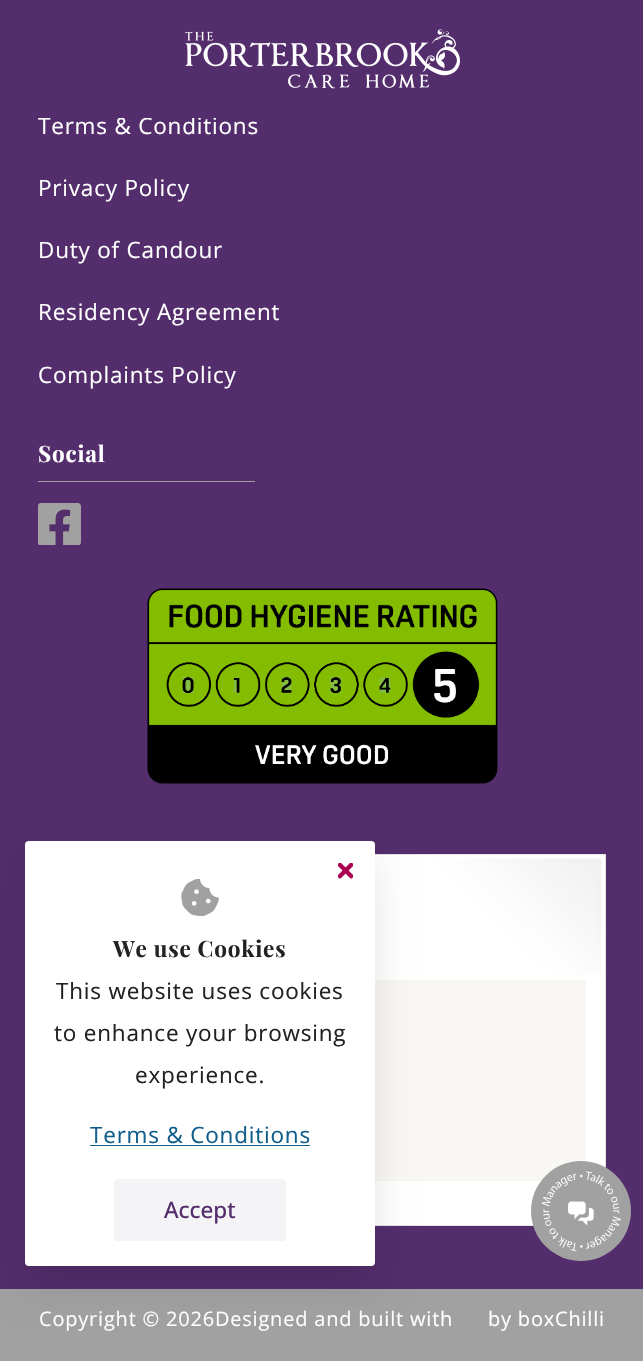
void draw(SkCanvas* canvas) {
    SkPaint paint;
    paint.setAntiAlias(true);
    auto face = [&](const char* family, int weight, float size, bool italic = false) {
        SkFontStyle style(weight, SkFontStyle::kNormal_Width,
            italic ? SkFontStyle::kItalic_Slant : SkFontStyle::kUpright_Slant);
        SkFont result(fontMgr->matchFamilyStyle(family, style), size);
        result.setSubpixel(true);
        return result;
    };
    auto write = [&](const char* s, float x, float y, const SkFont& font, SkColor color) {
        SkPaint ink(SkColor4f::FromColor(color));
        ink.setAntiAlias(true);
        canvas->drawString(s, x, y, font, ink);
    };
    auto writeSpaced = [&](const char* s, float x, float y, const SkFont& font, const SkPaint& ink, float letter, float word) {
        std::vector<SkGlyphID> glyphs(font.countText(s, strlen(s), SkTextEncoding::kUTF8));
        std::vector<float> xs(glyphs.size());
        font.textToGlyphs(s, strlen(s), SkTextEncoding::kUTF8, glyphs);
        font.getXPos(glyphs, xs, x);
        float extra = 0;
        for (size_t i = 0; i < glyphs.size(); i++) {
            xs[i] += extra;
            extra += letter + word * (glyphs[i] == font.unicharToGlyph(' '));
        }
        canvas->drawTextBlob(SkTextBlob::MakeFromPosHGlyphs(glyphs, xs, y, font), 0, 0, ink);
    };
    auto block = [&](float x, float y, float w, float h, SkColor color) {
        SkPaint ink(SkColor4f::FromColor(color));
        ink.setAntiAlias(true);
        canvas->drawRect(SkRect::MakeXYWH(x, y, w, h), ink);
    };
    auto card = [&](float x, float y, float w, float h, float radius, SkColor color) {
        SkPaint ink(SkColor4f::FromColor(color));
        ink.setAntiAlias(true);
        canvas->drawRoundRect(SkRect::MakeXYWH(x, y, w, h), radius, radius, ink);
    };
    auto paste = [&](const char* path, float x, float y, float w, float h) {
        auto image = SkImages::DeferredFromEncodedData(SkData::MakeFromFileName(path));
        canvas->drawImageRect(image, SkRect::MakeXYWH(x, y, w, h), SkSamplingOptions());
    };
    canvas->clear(SkColorSetRGB(83, 45, 108));
    auto kFont1 = face("Open Sans", 400, 22.5f);
    paint.setColor(SK_ColorWHITE);
    writeSpaced("Terms & Conditions", 38, 134, kFont1, paint, 0.8f, 0);
    block(37, 116, 179, 2, SkColorSetRGB(83, 45, 108));
    paste("pic1.png", 185, 29, 275, 60);
    writeSpaced("Privacy Policy", 38, 196, kFont1, paint, 0.8f, 0);
    writeSpaced("Duty of Candour", 38, 258, kFont1, paint, 0.8f, 0);
    writeSpaced("Residency Agreement", 38, 320, kFont1, paint, 0.8f, 0);
    writeSpaced("Complaints Policy", 38, 383, kFont1, paint, 0.8f, 0);
    block(38, 481, 217, 1, SkColorSetRGB(161, 161, 161));
    auto kFont2 = face("Playfair Display", 700, 22.5f);
    writeSpaced("Social", 38, 462, kFont2, paint, 0.8f, 0);
    paste("pic2.png", 38, 503, 43, 42);
    paste("pic3.png", 147, 588, 351, 196);
    block(375, 855, 230, 370, SK_ColorWHITE);
    paint.setStyle(SkPaint::kStroke_Style);
    paint.setStrokeWidth(1);
    paint.setColor(SkColorSetRGB(228, 228, 228));
    canvas->drawRect(SkRect::MakeXYWH(38.5f, 854.5f, 567, 371), paint);
    paste("pic4.png", 430, 854, 175, 121);
    block(375, 980, 211, 201, SkColorSetRGB(248, 247, 243));
    paint.setStyle(SkPaint::kFill_Style);
    paint.setColor(SkColorSetRGB(161, 161, 161));
    canvas->drawCircle(581, 1211, 50, paint);
    paste("pic5.png", 542, 1171, 79, 80);
    block(0, 1289, 643, 72, SkColorSetRGB(161, 161, 161));
    auto kFont3 = face("Open Sans", 400, 20);
    paint.setColor(SK_ColorWHITE);
    writeSpaced("Copyright © 2026Designed and built with", 39, 1326, kFont3, paint, 0.8f, 0);
    writeSpaced("by boxChilli", 488, 1326, kFont3, paint, 0.8f, 0);
    paint.setColor(SkColorSetARGB(26, 0, 0, 0));
    paint.setMaskFilter(SkMaskFilter::MakeBlur(kNormal_SkBlurStyle, 19));
    canvas->drawRoundRect(SkRect::MakeXYWH(25, 860, 350, 425), 4, 4, paint);
    paint.setMaskFilter(nullptr);
    card(25, 841, 350, 425, 4, SK_ColorWHITE);
    paste("pic6.png", 338, 863, 15, 16);
    paste("pic7.png", 181, 879, 38, 37);
    paint.setColor(SkColorSetRGB(35, 33, 34));
    writeSpaced("We use Cookies", 113, 957, kFont2, paint, 0.8f, 0);
    writeSpaced("This website uses cookies", 56, 999, kFont1, paint, 0.8f, 0);
    writeSpaced("to enhance your browsing", 54, 1041, kFont1, paint, 0.8f, 0);
    writeSpaced("experience.", 135, 1083, kFont1, paint, 0.8f, 0);
    paint.setColor(SkColorSetRGB(15, 93, 138));
    writeSpaced("Terms & Conditions", 90, 1143, kFont1, paint, 0.8f, 0);
    block(90, 1145, 220, 1, SkColorSetRGB(15, 93, 138));
    card(114, 1179, 172, 62, 4, SkColorSetRGB(244, 244, 247));
    auto kFont4 = face("Open Sans", 500, 22.5f);
    write("Accept", 164, 1218, kFont4, SkColorSetRGB(83, 45, 108));
}
